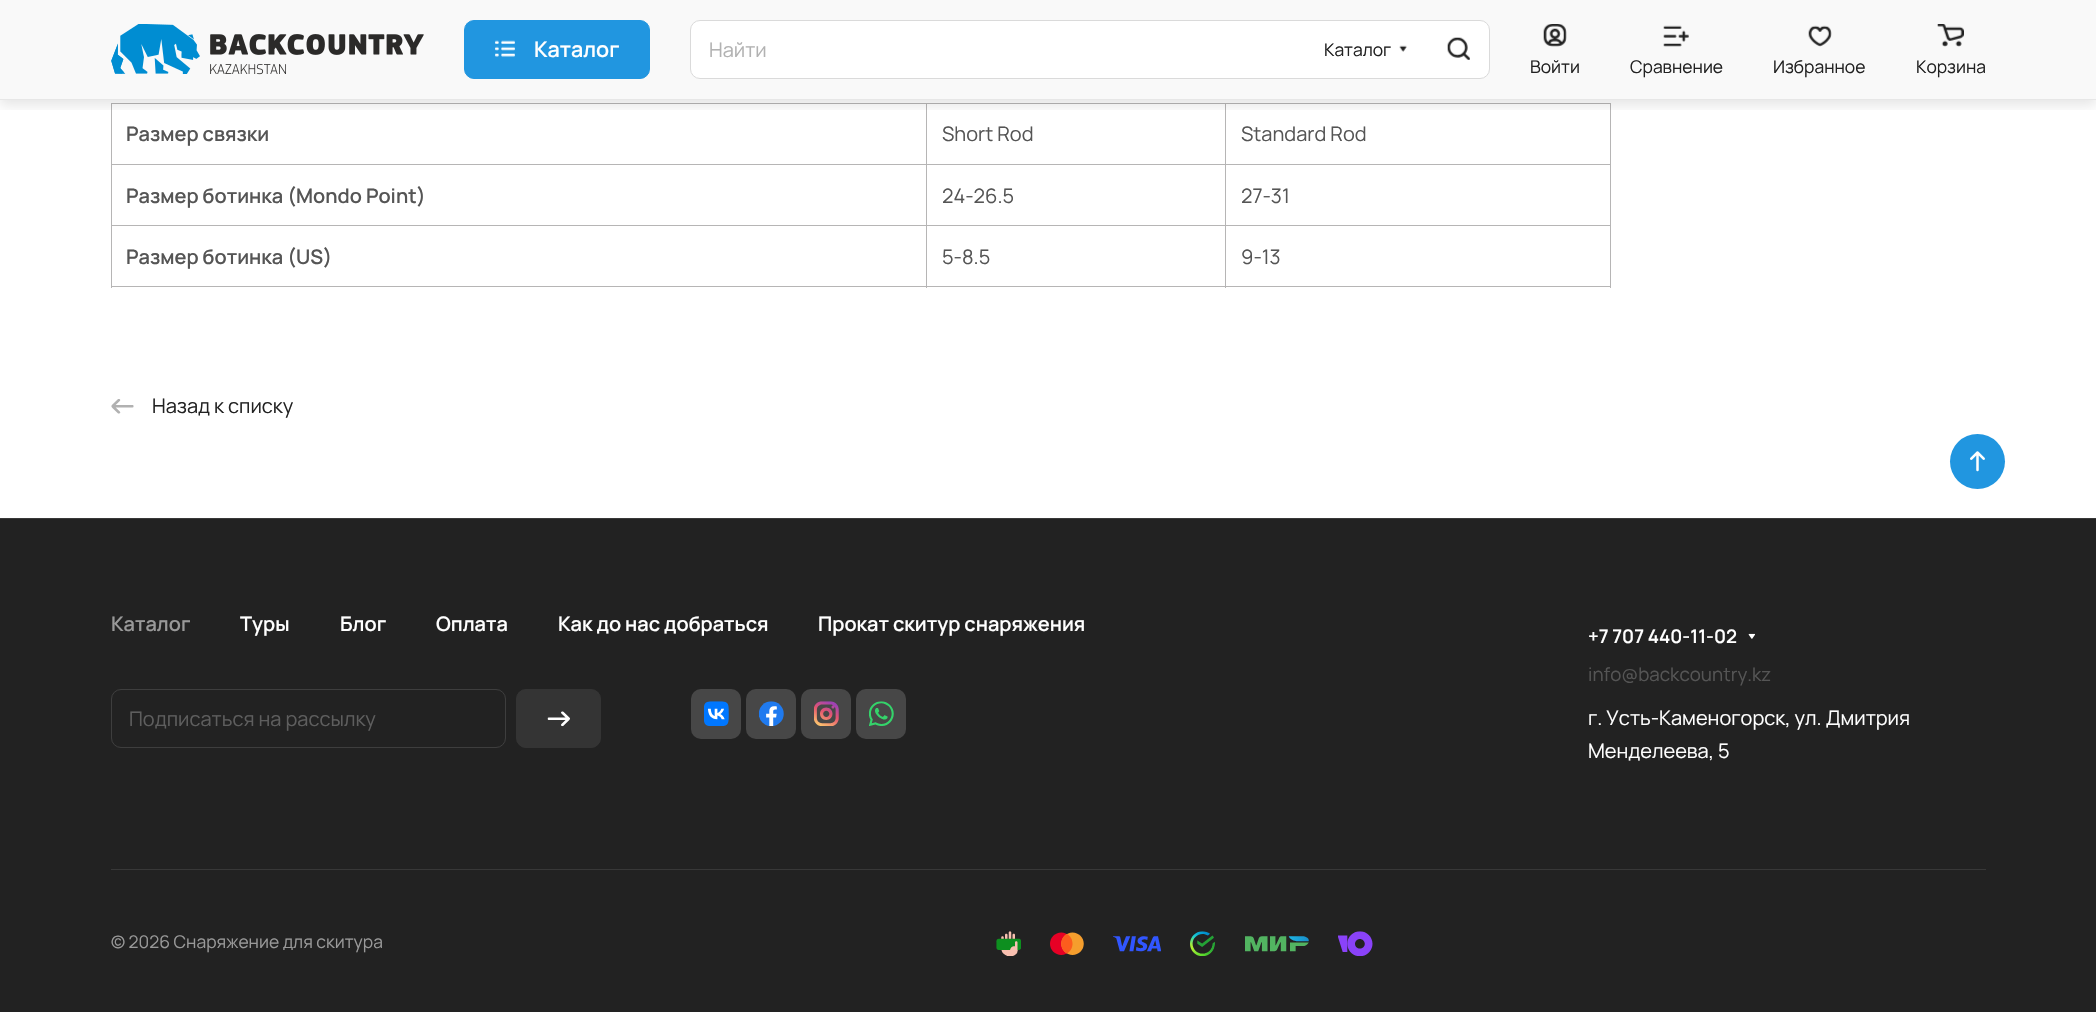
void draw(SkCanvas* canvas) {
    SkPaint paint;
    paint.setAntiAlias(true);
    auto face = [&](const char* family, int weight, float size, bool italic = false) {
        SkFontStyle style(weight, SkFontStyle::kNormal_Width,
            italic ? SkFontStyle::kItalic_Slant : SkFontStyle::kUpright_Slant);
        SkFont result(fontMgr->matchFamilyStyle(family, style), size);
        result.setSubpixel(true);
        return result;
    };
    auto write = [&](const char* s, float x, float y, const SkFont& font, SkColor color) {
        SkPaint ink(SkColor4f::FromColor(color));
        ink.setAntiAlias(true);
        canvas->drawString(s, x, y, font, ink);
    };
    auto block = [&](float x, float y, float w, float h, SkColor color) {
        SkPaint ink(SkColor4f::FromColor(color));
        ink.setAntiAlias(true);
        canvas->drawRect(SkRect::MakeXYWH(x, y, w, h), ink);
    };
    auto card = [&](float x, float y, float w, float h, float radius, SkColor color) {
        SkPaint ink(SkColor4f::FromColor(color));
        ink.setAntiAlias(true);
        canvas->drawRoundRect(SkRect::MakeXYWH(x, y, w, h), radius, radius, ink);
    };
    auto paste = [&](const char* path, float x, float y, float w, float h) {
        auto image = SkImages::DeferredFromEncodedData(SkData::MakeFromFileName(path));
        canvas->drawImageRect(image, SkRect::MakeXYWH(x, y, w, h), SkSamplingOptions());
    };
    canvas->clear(SK_ColorWHITE);
    block(0, 0, 2096, 99, SkColorSetRGB(249, 249, 249));
    block(1225, 103, 386, 1, SkColorSetRGB(182, 181, 181));
    block(1225, 164, 386, 1, SkColorSetRGB(182, 181, 181));
    block(1225, 225, 386, 1, SkColorSetRGB(182, 181, 181));
    block(1610, 225, 1, 63, SkColorSetRGB(182, 181, 181));
    block(1225, 286, 386, 1, SkColorSetRGB(182, 181, 181));
    block(1225, 225, 1, 63, SkColorSetRGB(182, 181, 181));
    block(926, 225, 300, 1, SkColorSetRGB(182, 181, 181));
    block(1225, 164, 1, 62, SkColorSetRGB(182, 181, 181));
    block(926, 164, 300, 1, SkColorSetRGB(182, 181, 181));
    block(1225, 103, 1, 62, SkColorSetRGB(182, 181, 181));
    block(926, 103, 300, 1, SkColorSetRGB(182, 181, 181));
    block(926, 286, 300, 1, SkColorSetRGB(182, 181, 181));
    block(926, 225, 1, 63, SkColorSetRGB(182, 181, 181));
    block(111, 225, 817, 1, SkColorSetRGB(182, 181, 181));
    block(926, 164, 1, 62, SkColorSetRGB(182, 181, 181));
    block(111, 164, 817, 1, SkColorSetRGB(182, 181, 181));
    block(926, 103, 1, 62, SkColorSetRGB(182, 181, 181));
    block(111, 103, 817, 1, SkColorSetRGB(182, 181, 181));
    block(111, 286, 817, 1, SkColorSetRGB(182, 181, 181));
    block(111, 225, 1, 63, SkColorSetRGB(182, 181, 181));
    block(111, 164, 1, 62, SkColorSetRGB(182, 181, 181));
    block(111, 103, 1, 62, SkColorSetRGB(182, 181, 181));
    block(1610, 164, 1, 62, SkColorSetRGB(182, 181, 181));
    block(1610, 103, 1, 62, SkColorSetRGB(182, 181, 181));
    canvas->save();
    canvas->clipRect(SkRect::MakeXYWH(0, 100, 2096, 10));
    paint.setColor(SkColorSetARGB(26, 0, 0, 0));
    paint.setMaskFilter(SkMaskFilter::MakeBlur(kNormal_SkBlurStyle, 6));
    canvas->drawRect(SkRect::MakeXYWH(0, 5, 2096, 100), paint);
    paint.setMaskFilter(nullptr);
    canvas->restore();
    block(0, 99, 2096, 1, SkColorSetRGB(231, 231, 231));
    paste("pic1.png", 111, 24, 313, 51);
    paint.setColor(SkColorSetRGB(33, 150, 224));
    canvas->drawRoundRect(SkRect::MakeXYWH(464.5f, 20.5f, 185, 58), 9.5f, 9.5f, paint);
    paint.setStyle(SkPaint::kStroke_Style);
    paint.setStrokeWidth(1);
    canvas->drawRoundRect(SkRect::MakeXYWH(464.5f, 20.5f, 185, 58), 9.5f, 9.5f, paint);
    paste("pic2.png", 495, 40, 20, 17);
    auto kFont1 = face("Manrope", 200, 21.5f);
    write("Каталог", 534, 57, kFont1, SK_ColorWHITE);
    paint.setStyle(SkPaint::kFill_Style);
    paint.setColor(SK_ColorWHITE);
    canvas->drawRoundRect(SkRect::MakeXYWH(690.5f, 20.5f, 799, 58), 9.5f, 9.5f, paint);
    paint.setStyle(SkPaint::kStroke_Style);
    paint.setColor(SkColorSetRGB(218, 218, 218));
    canvas->drawRoundRect(SkRect::MakeXYWH(690.5f, 20.5f, 799, 58), 9.5f, 9.5f, paint);
    auto kFont2 = face("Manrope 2", 200, 20);
    write("Найти", 709, 57, kFont2, SkColorSetRGB(178, 178, 178));
    auto kFont3 = face("Manrope 2", 200, 17.5f);
    write("Каталог", 1324, 56, kFont3, SkColorSetRGB(34, 34, 34));
    paste("pic3.png", 1399, 45, 8, 7);
    paste("pic4.png", 1447, 37, 23, 23);
    paste("pic5.png", 1543, 24, 24, 23);
    write("Войти", 1530, 73, kFont3, SkColorSetRGB(34, 34, 34));
    paste("pic6.png", 1663, 25, 26, 22);
    write("Сравнение", 1630, 73, kFont3, SkColorSetRGB(34, 34, 34));
    paste("pic7.png", 1808, 25, 24, 22);
    write("Избранное", 1773, 73, kFont3, SkColorSetRGB(34, 34, 34));
    paste("pic8.png", 1937, 24, 27, 23);
    write("Корзина", 1916, 73, kFont3, SkColorSetRGB(34, 34, 34));
    auto kFont4 = face("Manrope", 200, 20);
    write("Размер связки", 126, 141, kFont4, SkColorSetRGB(85, 85, 85));
    write("Short Rod", 942, 141, kFont2, SkColorSetRGB(85, 85, 85));
    write("Standard Rod", 1241, 141, kFont2, SkColorSetRGB(85, 85, 85));
    write("Размер ботинка (Mondo Point)", 126, 203, kFont4, SkColorSetRGB(85, 85, 85));
    write("24-26.5", 942, 203, kFont2, SkColorSetRGB(85, 85, 85));
    write("27-31", 1241, 203, kFont2, SkColorSetRGB(85, 85, 85));
    write("Размер ботинка (US)", 126, 264, kFont4, SkColorSetRGB(85, 85, 85));
    write("5-8.5", 942, 264, kFont2, SkColorSetRGB(85, 85, 85));
    write("9-13", 1241, 264, kFont2, SkColorSetRGB(85, 85, 85));
    paste("pic9.png", 111, 399, 23, 15);
    write("Назад к списку", 152, 413, kFont2, SkColorSetRGB(34, 34, 34));
    paint.setStyle(SkPaint::kFill_Style);
    paint.setColor(SkColorSetRGB(33, 150, 224));
    canvas->drawCircle(1977.5f, 461.5f, 27.5f, paint);
    paste("pic10.png", 1970, 451, 15, 21);
    block(0, 519, 2096, 493, SkColorSetRGB(34, 34, 34));
    block(0, 518, 2096, 1, SkColorSetRGB(56, 56, 56));
    write("Каталог", 111, 631, kFont4, SkColorSetRGB(153, 153, 153));
    write("Туры", 240, 631, kFont4, SK_ColorWHITE);
    write("Блог", 340, 631, kFont4, SK_ColorWHITE);
    write("Оплата", 436, 631, kFont4, SK_ColorWHITE);
    write("Как до нас добраться", 558, 631, kFont4, SK_ColorWHITE);
    write("Прокат скитур снаряжения", 818, 631, kFont4, SK_ColorWHITE);
    paint.setStyle(SkPaint::kStroke_Style);
    paint.setColor(SkColorSetRGB(62, 62, 62));
    canvas->drawRoundRect(SkRect::MakeXYWH(111.5f, 689.5f, 394, 58), 9.5f, 9.5f, paint);
    write("Подписаться на рассылку", 129, 726, kFont2, SkColorSetRGB(94, 94, 94));
    paint.setStyle(SkPaint::kFill_Style);
    paint.setColor(SkColorSetRGB(52, 52, 52));
    canvas->drawRoundRect(SkRect::MakeXYWH(516.5f, 689.5f, 84, 58), 9.5f, 9.5f, paint);
    paint.setStyle(SkPaint::kStroke_Style);
    canvas->drawRoundRect(SkRect::MakeXYWH(516.5f, 689.5f, 84, 58), 9.5f, 9.5f, paint);
    paste("pic11.png", 547, 711, 23, 16);
    card(691, 689, 50, 50, 10, SkColorSetRGB(71, 71, 71));
    paste("pic12.png", 704, 701, 25, 25);
    card(746, 689, 50, 50, 10, SkColorSetRGB(71, 71, 71));
    paste("pic13.png", 759, 701, 25, 25);
    card(801, 689, 50, 50, 10, SkColorSetRGB(71, 71, 71));
    paste("pic14.png", 814, 701, 25, 25);
    card(856, 689, 50, 50, 10, SkColorSetRGB(71, 71, 71));
    paste("pic15.png", 869, 701, 25, 25);
    auto kFont5 = face("Manrope", 200, 18.75f);
    write("+7 707 440-11-02", 1588, 643, kFont5, SK_ColorWHITE);
    paste("pic16.png", 1748, 633, 7, 6);
    auto kFont6 = face("Manrope 2", 200, 18.75f);
    write("info@backcountry.kz", 1588, 681, kFont6, SkColorSetRGB(85, 85, 85));
    write("г. Усть-Каменогорск, ул. Дмитрия", 1588, 725, kFont2, SK_ColorWHITE);
    write("Менделеева, 5", 1588, 758, kFont2, SK_ColorWHITE);
    block(111, 869, 1875, 1, SkColorSetRGB(56, 56, 56));
    write("© 2026 Снаряжение для скитура", 111, 948, kFont3, SkColorSetRGB(153, 153, 153));
    paste("pic17.png", 996, 931, 25, 25);
    paste("pic18.png", 1050, 932, 34, 23);
    paste("pic19.png", 1113, 936, 48, 16);
    paste("pic20.png", 1190, 931, 25, 25);
    paste("pic21.png", 1245, 936, 64, 16);
    paste("pic22.png", 1338, 931, 35, 25);
}
